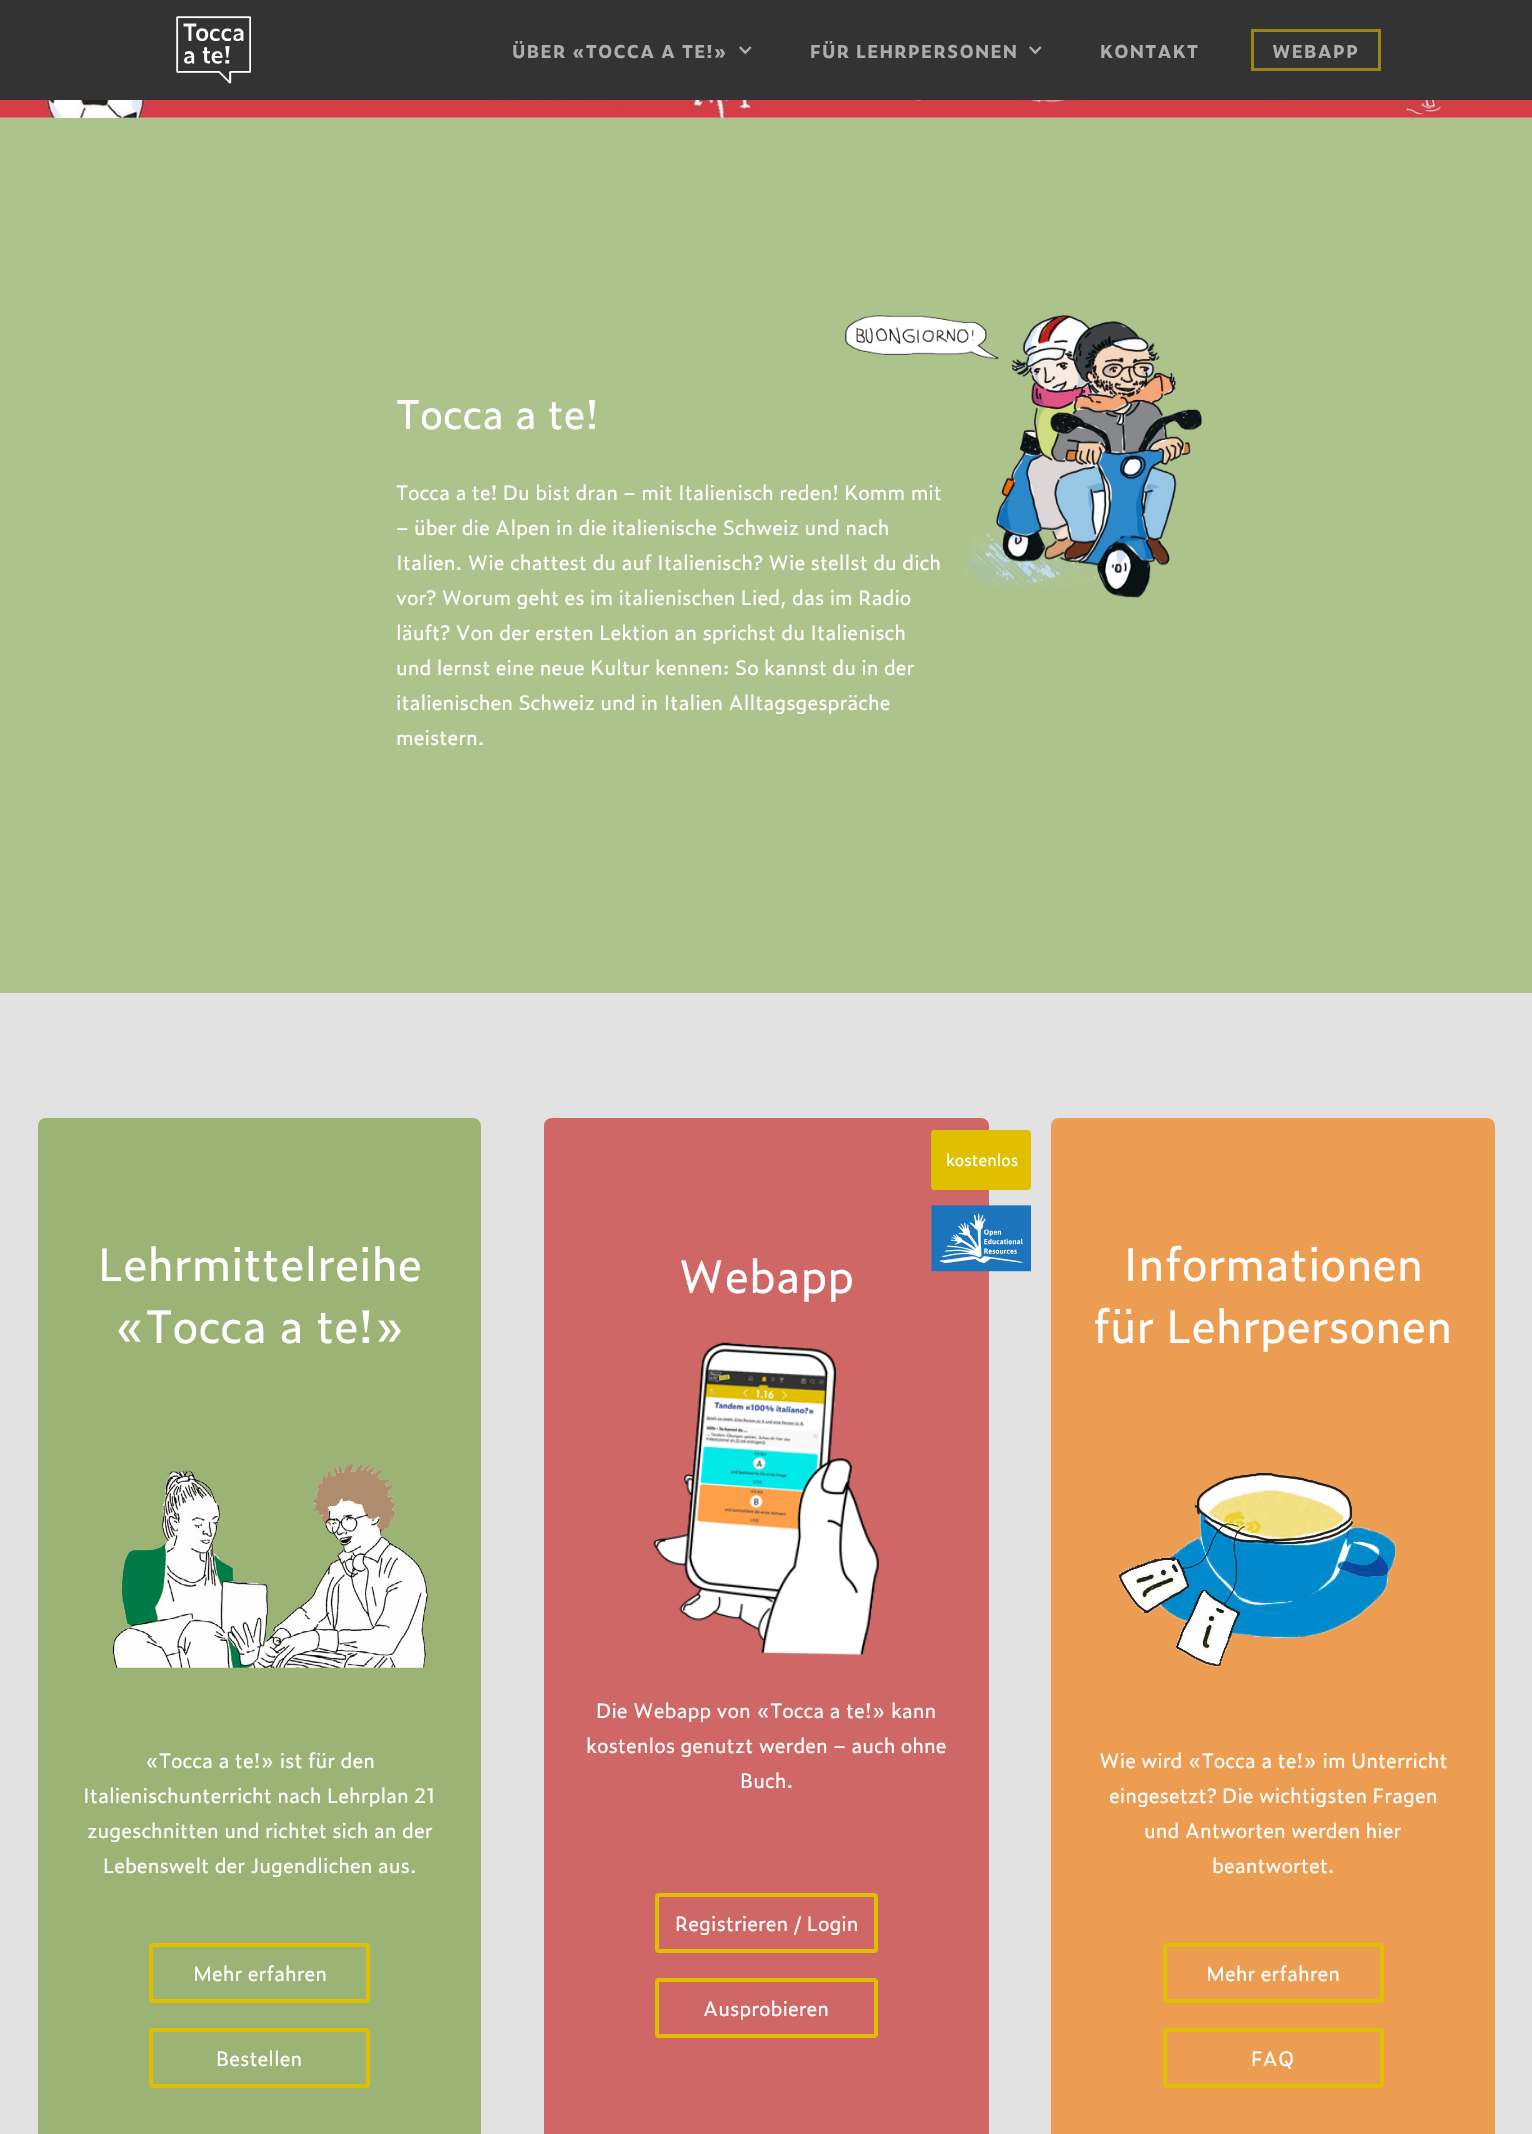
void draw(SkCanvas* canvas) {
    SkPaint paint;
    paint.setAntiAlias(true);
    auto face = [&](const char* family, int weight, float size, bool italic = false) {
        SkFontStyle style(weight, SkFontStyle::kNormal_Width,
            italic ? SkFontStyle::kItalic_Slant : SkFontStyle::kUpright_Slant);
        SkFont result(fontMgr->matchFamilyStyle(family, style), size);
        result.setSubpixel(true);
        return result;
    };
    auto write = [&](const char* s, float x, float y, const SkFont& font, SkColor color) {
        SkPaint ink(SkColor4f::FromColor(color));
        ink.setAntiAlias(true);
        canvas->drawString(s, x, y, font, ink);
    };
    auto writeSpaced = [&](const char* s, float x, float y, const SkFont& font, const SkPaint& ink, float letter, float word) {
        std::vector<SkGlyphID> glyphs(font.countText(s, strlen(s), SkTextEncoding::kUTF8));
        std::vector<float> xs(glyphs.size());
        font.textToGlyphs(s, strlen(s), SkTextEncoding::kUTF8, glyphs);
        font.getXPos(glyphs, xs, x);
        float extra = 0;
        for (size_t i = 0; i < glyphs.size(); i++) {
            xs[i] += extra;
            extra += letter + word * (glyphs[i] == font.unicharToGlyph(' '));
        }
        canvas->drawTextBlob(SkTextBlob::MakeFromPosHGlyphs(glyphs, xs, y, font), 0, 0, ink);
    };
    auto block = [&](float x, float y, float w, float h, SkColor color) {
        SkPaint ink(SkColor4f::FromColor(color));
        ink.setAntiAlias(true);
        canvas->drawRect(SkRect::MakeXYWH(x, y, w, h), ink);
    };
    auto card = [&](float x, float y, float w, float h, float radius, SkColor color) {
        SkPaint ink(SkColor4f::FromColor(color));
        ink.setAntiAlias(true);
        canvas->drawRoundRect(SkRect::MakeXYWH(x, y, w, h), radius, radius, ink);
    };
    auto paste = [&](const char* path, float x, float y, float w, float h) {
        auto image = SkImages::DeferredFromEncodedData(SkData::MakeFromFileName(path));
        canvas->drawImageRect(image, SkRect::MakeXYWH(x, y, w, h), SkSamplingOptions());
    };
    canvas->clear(SK_ColorWHITE);
    block(0, 0, 1532, 100, SkColorSetRGB(51, 51, 51));
    paste("pic1.png", 176, 16, 75, 68);
    auto kFont1 = face("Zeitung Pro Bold", 700, 17.5f);
    paint.setColor(SkColorSetRGB(173, 173, 173));
    writeSpaced("ÜBER «TOCCA A TE!»", 512, 58, kFont1, paint, 1.25f, 0);
    paste("pic2.png", 739, 46, 13, 9);
    writeSpaced("FÜR LEHRPERSONEN", 810, 58, kFont1, paint, 1.25f, 0);
    paste("pic2.png", 1029, 46, 13, 9);
    writeSpaced("KONTAKT", 1100, 58, kFont1, paint, 1.25f, 0);
    paint.setStyle(SkPaint::kStroke_Style);
    paint.setStrokeWidth(3);
    paint.setColor(SkColorSetRGB(155, 134, 20));
    canvas->drawRect(SkRect::MakeXYWH(1252.5f, 30.5f, 127, 39), paint);
    paint.setStyle(SkPaint::kFill_Style);
    paint.setColor(SkColorSetRGB(173, 173, 173));
    writeSpaced("WEBAPP", 1272, 58, kFont1, paint, 1.25f, 0);
    paste("pic3.png", 0, 100, 1532, 18);
    block(0, 118, 1532, 875, SkColorSetRGB(173, 195, 140));
    auto kFont2 = face("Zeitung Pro", 400, 40);
    write("Tocca a te!", 396, 429, kFont2, SK_ColorWHITE);
    auto kFont3 = face("Zeitung Pro", 400, 20);
    write("Tocca a te! Du bist dran – mit Italienisch reden! Komm mit", 396, 500, kFont3, SK_ColorWHITE);
    write("– über die Alpen in die italienische Schweiz und nach", 396, 535, kFont3, SK_ColorWHITE);
    write("Italien. Wie chattest du auf Italienisch? Wie stellst du dich", 396, 570, kFont3, SK_ColorWHITE);
    write("vor? Worum geht es im italienischen Lied, das im Radio", 396, 605, kFont3, SK_ColorWHITE);
    write("läuft? Von der ersten Lektion an sprichst du Italienisch", 396, 640, kFont3, SK_ColorWHITE);
    write("und lernst eine neue Kultur kennen: So kannst du in der", 396, 675, kFont3, SK_ColorWHITE);
    write("italienischen Schweiz und in Italien Alltagsgespräche", 396, 710, kFont3, SK_ColorWHITE);
    write("meistern.", 396, 745, kFont3, SK_ColorWHITE);
    paste("pic4.png", 845, 288, 357, 310);
    block(0, 993, 1532, 1141, SkColorSetRGB(226, 226, 226));
    card(38, 1118, 443, 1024, 8, SkColorSetRGB(155, 180, 118));
    auto kFont4 = face("Zeitung Pro", 400, 45);
    write("Lehrmittelreihe", 98, 1281, kFont4, SK_ColorWHITE);
    write("«Tocca a te!»", 114, 1343, kFont4, SK_ColorWHITE);
    paste("pic5.png", 112, 1463, 317, 205);
    write("«Tocca a te!» ist für den", 145, 1768, kFont3, SK_ColorWHITE);
    write("Italienischunterricht nach Lehrplan 21", 83, 1803, kFont3, SK_ColorWHITE);
    write("zugeschnitten und richtet sich an der", 87, 1838, kFont3, SK_ColorWHITE);
    write("Lebenswelt der Jugendlichen aus.", 103, 1873, kFont3, SK_ColorWHITE);
    paint.setStyle(SkPaint::kStroke_Style);
    paint.setStrokeWidth(4);
    paint.setColor(SkColorSetRGB(224, 190, 0));
    canvas->drawRoundRect(SkRect::MakeXYWH(151, 1945, 217, 56), 2, 2, paint);
    write("Mehr erfahren", 193, 1981, kFont3, SK_ColorWHITE);
    canvas->drawRoundRect(SkRect::MakeXYWH(151, 2030, 217, 56), 2, 2, paint);
    write("Bestellen", 216, 2066, kFont3, SK_ColorWHITE);
    card(544, 1118, 445, 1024, 8, SkColorSetRGB(207, 103, 102));
    paint.setStyle(SkPaint::kFill_Style);
    canvas->drawRoundRect(SkRect::MakeXYWH(933, 1132, 96, 56), 2, 2, paint);
    paint.setStyle(SkPaint::kStroke_Style);
    canvas->drawRoundRect(SkRect::MakeXYWH(933, 1132, 96, 56), 2, 2, paint);
    auto kFont5 = face("Zeitung Pro", 400, 16.25f);
    write("kostenlos", 946, 1166, kFont5, SK_ColorWHITE);
    paste("pic6.png", 931, 1205, 100, 67);
    write("Webapp", 678, 1293, kFont4, SK_ColorWHITE);
    paste("pic7.png", 653, 1342, 226, 314);
    write("Die Webapp von «Tocca a te!» kann", 596, 1718, kFont3, SK_ColorWHITE);
    write("kostenlos genutzt werden – auch ohne", 586, 1753, kFont3, SK_ColorWHITE);
    write("Buch.", 740, 1788, kFont3, SK_ColorWHITE);
    canvas->drawRoundRect(SkRect::MakeXYWH(657, 1895, 219, 56), 2, 2, paint);
    write("Registrieren / Login", 675, 1931, kFont3, SK_ColorWHITE);
    canvas->drawRoundRect(SkRect::MakeXYWH(657, 1980, 219, 56), 2, 2, paint);
    write("Ausprobieren", 703, 2016, kFont3, SK_ColorWHITE);
    card(1051, 1118, 444, 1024, 8, SkColorSetRGB(237, 157, 81));
    write("Informationen", 1123, 1281, kFont4, SK_ColorWHITE);
    write("für Lehrpersonen", 1093, 1343, kFont4, SK_ColorWHITE);
    paste("pic8.png", 1119, 1472, 277, 195);
    write("Wie wird «Tocca a te!» im Unterricht", 1099, 1768, kFont3, SK_ColorWHITE);
    write("eingesetzt? Die wichtigsten Fragen", 1109, 1803, kFont3, SK_ColorWHITE);
    write("und Antworten werden hier", 1144, 1838, kFont3, SK_ColorWHITE);
    write("beantwortet.", 1212, 1873, kFont3, SK_ColorWHITE);
    canvas->drawRoundRect(SkRect::MakeXYWH(1165, 1945, 217, 56), 2, 2, paint);
    write("Mehr erfahren", 1206, 1981, kFont3, SK_ColorWHITE);
    canvas->drawRoundRect(SkRect::MakeXYWH(1165, 2030, 217, 56), 2, 2, paint);
    write("FAQ", 1251, 2066, kFont3, SK_ColorWHITE);
}
